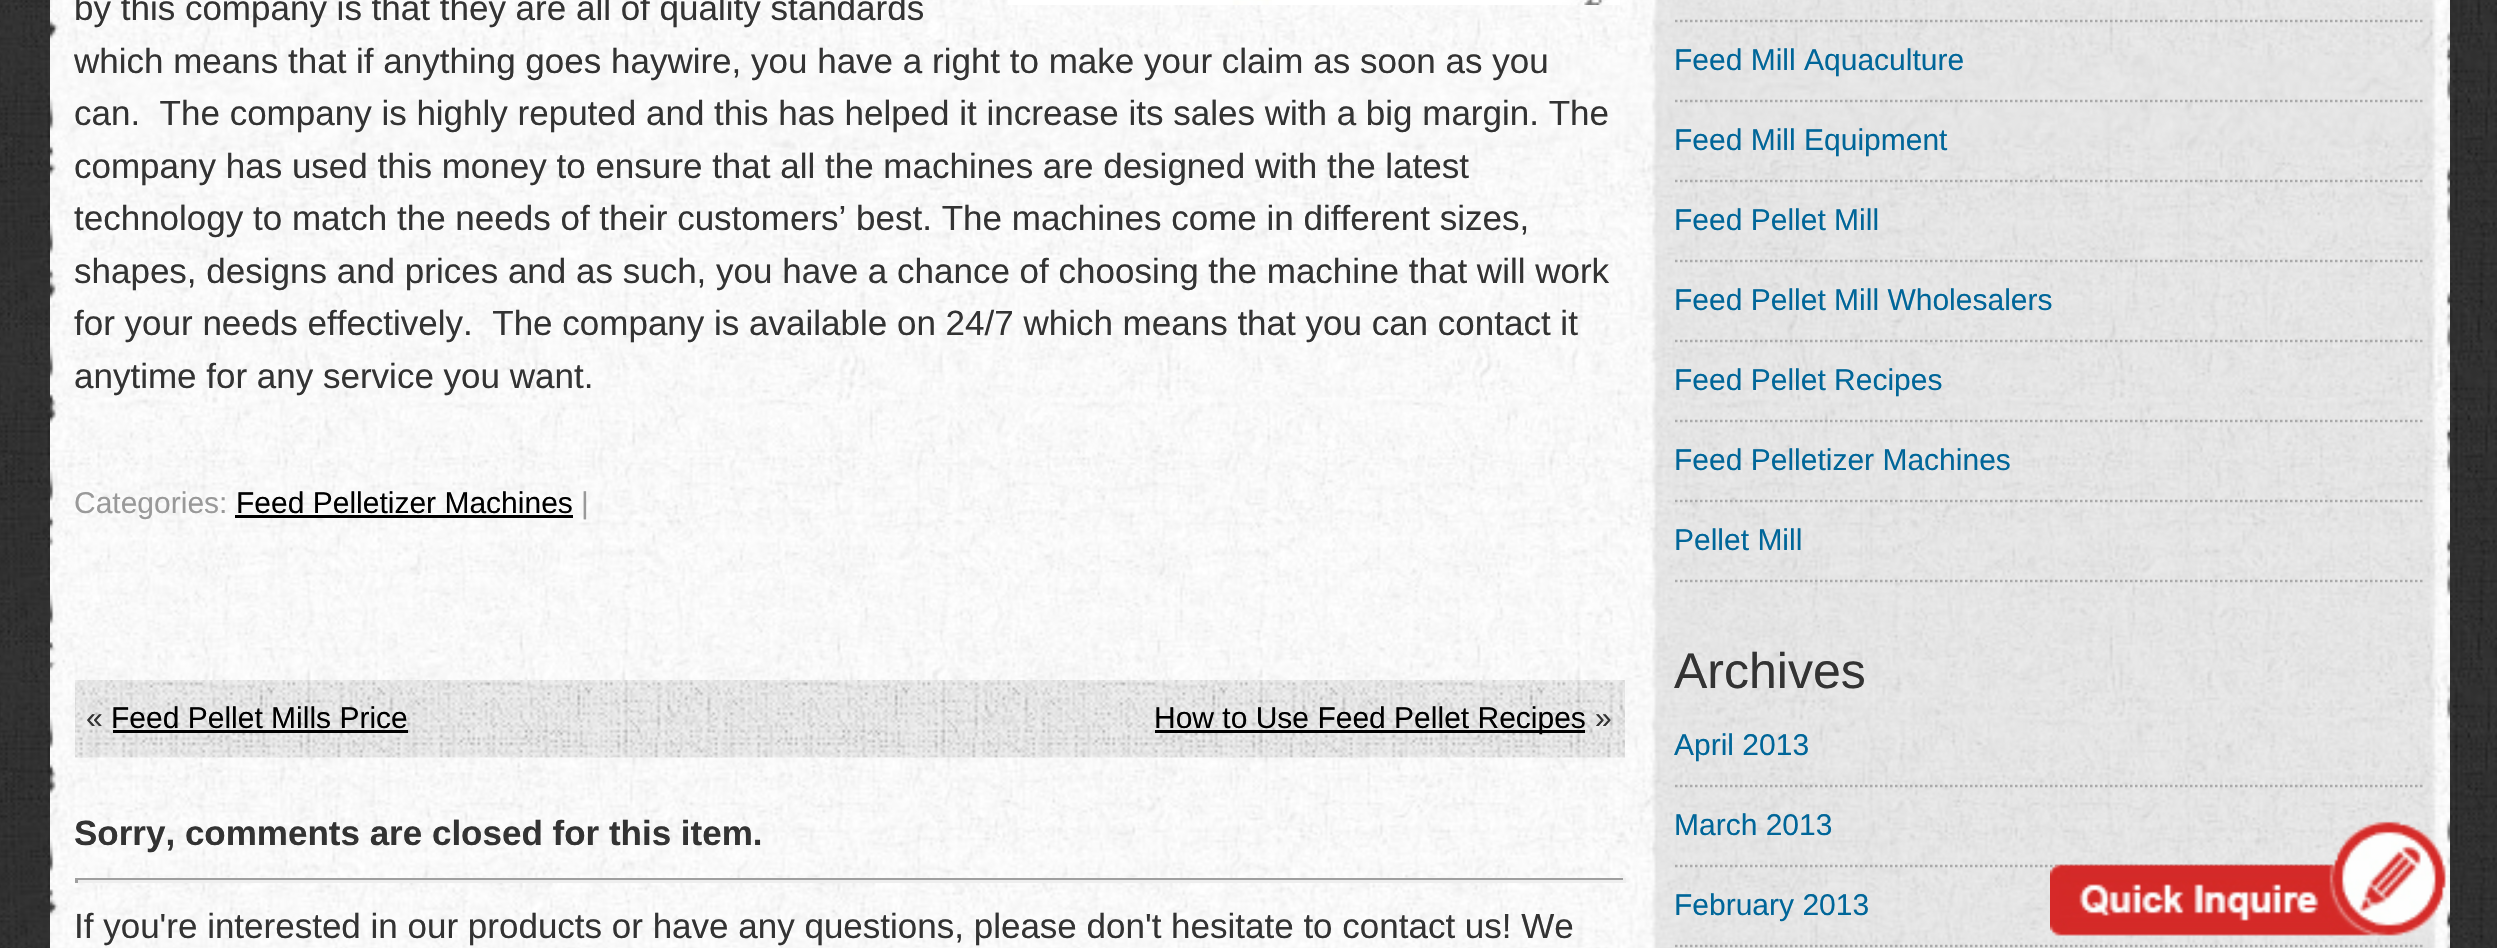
void draw(SkCanvas* canvas) {
    SkPaint paint;
    paint.setAntiAlias(true);
    auto face = [&](const char* family, int weight, float size, bool italic = false) {
        SkFontStyle style(weight, SkFontStyle::kNormal_Width,
            italic ? SkFontStyle::kItalic_Slant : SkFontStyle::kUpright_Slant);
        SkFont result(fontMgr->matchFamilyStyle(family, style), size);
        result.setSubpixel(true);
        return result;
    };
    auto write = [&](const char* s, float x, float y, const SkFont& font, SkColor color) {
        SkPaint ink(SkColor4f::FromColor(color));
        ink.setAntiAlias(true);
        canvas->drawString(s, x, y, font, ink);
    };
    auto block = [&](float x, float y, float w, float h, SkColor color) {
        SkPaint ink(SkColor4f::FromColor(color));
        ink.setAntiAlias(true);
        canvas->drawRect(SkRect::MakeXYWH(x, y, w, h), ink);
    };
    auto paste = [&](const char* path, float x, float y, float w, float h) {
        auto image = SkImages::DeferredFromEncodedData(SkData::MakeFromFileName(path));
        canvas->drawImageRect(image, SkRect::MakeXYWH(x, y, w, h), SkSamplingOptions());
    };
    canvas->clear(SK_ColorWHITE);
    paste("pic1.png", 0, 0, 2497, 948);
    paste("pic2.png", 50, 0, 2400, 948);
    auto kFont1 = face("Liberation Sans", 400, 35);
    write("by this company is that they are all of quality standards", 74, 20, kFont1, SkColorSetRGB(51, 51, 51));
    write("which means that if anything goes haywire, you have a right to make your claim as soon as you", 74, 73, kFont1, SkColorSetRGB(51, 51, 51));
    write("can.  The company is highly reputed and this has helped it increase its sales with a big margin. The", 74, 125, kFont1, SkColorSetRGB(51, 51, 51));
    write("company has used this money to ensure that all the machines are designed with the latest", 74, 178, kFont1, SkColorSetRGB(51, 51, 51));
    write("technology to match the needs of their customers’ best. The machines come in different sizes,", 74, 230, kFont1, SkColorSetRGB(51, 51, 51));
    write("shapes, designs and prices and as such, you have a chance of choosing the machine that will work", 74, 283, kFont1, SkColorSetRGB(51, 51, 51));
    write("for your needs effectively.  The company is available on 24/7 which means that you can contact it", 74, 335, kFont1, SkColorSetRGB(51, 51, 51));
    write("anytime for any service you want.", 74, 388, kFont1, SkColorSetRGB(51, 51, 51));
    paste("pic3.png", 1007, 0, 613, 5);
    auto kFont2 = face("Liberation Sans", 400, 30);
    write("Categories:", 74, 513, kFont2, SkColorSetRGB(153, 153, 153));
    write("Feed Pelletizer Machines", 236, 513, kFont2, SK_ColorBLACK);
    block(235, 515, 338, 3, SK_ColorBLACK);
    write("|", 581, 513, kFont2, SkColorSetRGB(153, 153, 153));
    paste("pic4.png", 75, 680, 1550, 78);
    write("«", 86, 728, kFont2, SkColorSetRGB(51, 51, 51));
    write("Feed Pellet Mills Price", 111, 728, kFont2, SK_ColorBLACK);
    block(113, 730, 295, 3, SK_ColorBLACK);
    block(1155, 730, 430, 3, SK_ColorBLACK);
    write("How to Use Feed Pellet Recipes", 1154, 728, kFont2, SK_ColorBLACK);
    write("»", 1595, 728, kFont2, SkColorSetRGB(51, 51, 51));
    auto kFont3 = face("Liberation Sans", 700, 35);
    write("Sorry, comments are closed for this item.", 74, 845, kFont3, SkColorSetRGB(51, 51, 51));
    block(75, 878, 1550, 2, SkColorSetRGB(159, 159, 159));
    block(1623, 878, 3, 5, SkColorSetRGB(238, 238, 238));
    block(75, 880, 1550, 3, SkColorSetRGB(238, 238, 238));
    block(75, 878, 3, 5, SkColorSetRGB(159, 159, 159));
    write("If you're interested in our products or have any questions, please don't hesitate to contact us! We", 74, 938, kFont1, SkColorSetRGB(51, 51, 51));
    paint.setStyle(SkPaint::kStroke_Style);
    paint.setStrokeWidth(2.5f);
    paint.setColor(SkColorSetRGB(170, 170, 170));
    paint.setPathEffect(SkDashPathEffect::Make({{2.5f, 2.5f}}, 0));
    canvas->drawPath(SkPathBuilder().moveTo(1675, 21).lineTo(2425, 21).detach(), paint);
    paint.setPathEffect(nullptr);
    paint.setPathEffect(SkDashPathEffect::Make({{2.5f, 2.5f}}, 0));
    canvas->drawPath(SkPathBuilder().moveTo(1675, 101).lineTo(2425, 101).detach(), paint);
    paint.setPathEffect(nullptr);
    write("Feed Mill Aquaculture", 1674, 70, kFont2, SkColorSetRGB(0, 102, 153));
    paint.setPathEffect(SkDashPathEffect::Make({{2.5f, 2.5f}}, 0));
    canvas->drawPath(SkPathBuilder().moveTo(1675, 181).lineTo(2425, 181).detach(), paint);
    paint.setPathEffect(nullptr);
    write("Feed Mill Equipment", 1674, 150, kFont2, SkColorSetRGB(0, 102, 153));
    paint.setPathEffect(SkDashPathEffect::Make({{2.5f, 2.5f}}, 0));
    canvas->drawPath(SkPathBuilder().moveTo(1675, 261).lineTo(2425, 261).detach(), paint);
    paint.setPathEffect(nullptr);
    write("Feed Pellet Mill", 1674, 230, kFont2, SkColorSetRGB(0, 102, 153));
    paint.setPathEffect(SkDashPathEffect::Make({{2.5f, 2.5f}}, 0));
    canvas->drawPath(SkPathBuilder().moveTo(1675, 341).lineTo(2425, 341).detach(), paint);
    paint.setPathEffect(nullptr);
    write("Feed Pellet Mill Wholesalers", 1674, 310, kFont2, SkColorSetRGB(0, 102, 153));
    paint.setPathEffect(SkDashPathEffect::Make({{2.5f, 2.5f}}, 0));
    canvas->drawPath(SkPathBuilder().moveTo(1675, 421).lineTo(2425, 421).detach(), paint);
    paint.setPathEffect(nullptr);
    write("Feed Pellet Recipes", 1674, 390, kFont2, SkColorSetRGB(0, 102, 153));
    paint.setPathEffect(SkDashPathEffect::Make({{2.5f, 2.5f}}, 0));
    canvas->drawPath(SkPathBuilder().moveTo(1675, 501).lineTo(2425, 501).detach(), paint);
    paint.setPathEffect(nullptr);
    write("Feed Pelletizer Machines", 1674, 470, kFont2, SkColorSetRGB(0, 102, 153));
    paint.setPathEffect(SkDashPathEffect::Make({{2.5f, 2.5f}}, 0));
    canvas->drawPath(SkPathBuilder().moveTo(1675, 581).lineTo(2425, 581).detach(), paint);
    paint.setPathEffect(nullptr);
    write("Pellet Mill", 1674, 550, kFont2, SkColorSetRGB(0, 102, 153));
    auto kFont4 = face("Liberation Sans", 400, 50);
    write("Archives", 1674, 688, kFont4, SkColorSetRGB(51, 51, 51));
    paint.setPathEffect(SkDashPathEffect::Make({{2.5f, 2.5f}}, 0));
    canvas->drawPath(SkPathBuilder().moveTo(1675, 786).lineTo(2425, 786).detach(), paint);
    paint.setPathEffect(nullptr);
    write("April 2013", 1674, 755, kFont2, SkColorSetRGB(0, 102, 153));
    paint.setPathEffect(SkDashPathEffect::Make({{2.5f, 2.5f}}, 0));
    canvas->drawPath(SkPathBuilder().moveTo(1675, 866).lineTo(2425, 866).detach(), paint);
    paint.setPathEffect(nullptr);
    write("March 2013", 1674, 835, kFont2, SkColorSetRGB(0, 102, 153));
    paint.setPathEffect(SkDashPathEffect::Make({{2.5f, 2.5f}}, 0));
    canvas->drawPath(SkPathBuilder().moveTo(1675, 946).lineTo(2425, 946).detach(), paint);
    paint.setPathEffect(nullptr);
    write("February 2013", 1674, 915, kFont2, SkColorSetRGB(0, 102, 153));
    paste("pic5.png", 2050, 821, 396, 115);
}
